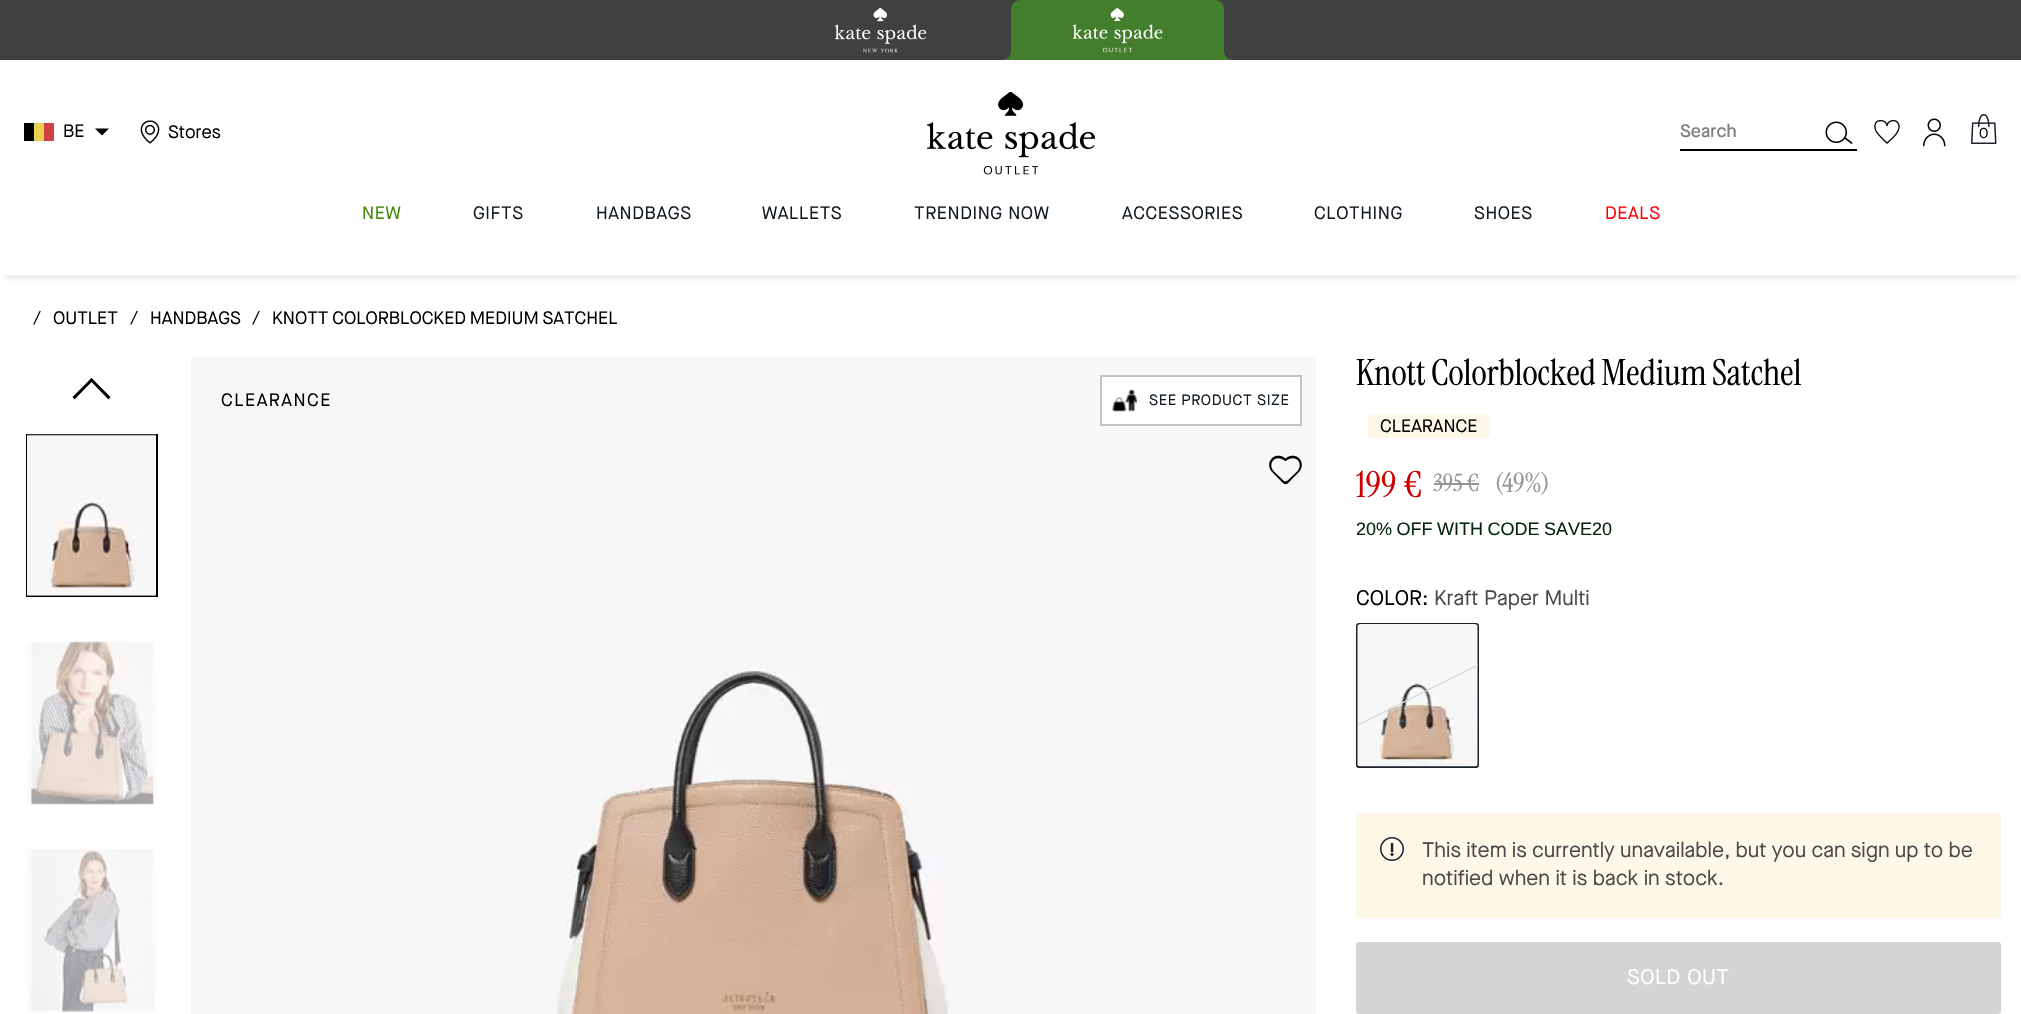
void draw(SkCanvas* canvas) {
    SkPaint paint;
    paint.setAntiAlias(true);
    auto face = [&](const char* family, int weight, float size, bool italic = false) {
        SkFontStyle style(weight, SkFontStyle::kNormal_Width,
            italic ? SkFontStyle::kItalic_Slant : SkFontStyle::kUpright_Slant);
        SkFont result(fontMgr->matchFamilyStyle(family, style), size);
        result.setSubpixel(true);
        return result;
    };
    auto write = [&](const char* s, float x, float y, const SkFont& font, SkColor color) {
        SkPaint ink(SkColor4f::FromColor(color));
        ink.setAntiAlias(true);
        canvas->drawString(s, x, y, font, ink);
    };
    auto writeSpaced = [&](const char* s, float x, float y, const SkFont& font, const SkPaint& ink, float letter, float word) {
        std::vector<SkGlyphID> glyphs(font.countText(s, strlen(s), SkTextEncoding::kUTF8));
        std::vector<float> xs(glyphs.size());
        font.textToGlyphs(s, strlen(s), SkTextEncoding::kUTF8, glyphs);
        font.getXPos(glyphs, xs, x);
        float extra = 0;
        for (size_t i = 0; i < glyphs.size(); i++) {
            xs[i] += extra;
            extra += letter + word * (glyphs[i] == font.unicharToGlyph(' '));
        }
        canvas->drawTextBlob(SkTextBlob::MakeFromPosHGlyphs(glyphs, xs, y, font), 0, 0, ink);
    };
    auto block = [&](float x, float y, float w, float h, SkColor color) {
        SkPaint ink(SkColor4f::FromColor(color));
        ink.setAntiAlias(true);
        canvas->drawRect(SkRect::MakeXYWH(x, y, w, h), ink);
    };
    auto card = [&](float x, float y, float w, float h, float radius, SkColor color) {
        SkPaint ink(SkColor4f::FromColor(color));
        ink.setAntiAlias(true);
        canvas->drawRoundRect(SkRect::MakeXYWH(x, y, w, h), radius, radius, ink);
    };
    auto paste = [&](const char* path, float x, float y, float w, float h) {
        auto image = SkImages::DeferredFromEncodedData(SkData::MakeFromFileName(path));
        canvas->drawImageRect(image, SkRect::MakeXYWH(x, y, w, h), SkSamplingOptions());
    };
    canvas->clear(SK_ColorWHITE);
    block(0, 0, 2021, 60, SkColorSetRGB(64, 64, 64));
    paste("pic1.png", 834, 8, 93, 45);
    paint.setColor(SkColorSetRGB(66, 126, 43));
    canvas->drawPath(SkPathBuilder().moveTo(1020, 0).lineTo(1215, 0).cubicTo(1220, 0, 1224, 4, 1224, 9).lineTo(1224, 60).lineTo(1011, 60).lineTo(1011, 9).cubicTo(1011, 4, 1015, 0, 1020, 0).close().detach(), paint);
    canvas->drawPath(SkPathBuilder().moveTo(1002, 60).lineTo(1014, 60).cubicTo(1019, 60, 1023, 56, 1023, 51).lineTo(1023, 45).lineTo(1011, 45).lineTo(1011, 51).cubicTo(1011, 56, 1007, 60, 1002, 60).close().detach(), paint);
    paste("pic2.png", 1072, 8, 91, 45);
    canvas->drawPath(SkPathBuilder().moveTo(1212, 45).lineTo(1212, 51).cubicTo(1212, 56, 1216, 60, 1221, 60).lineTo(1233, 60).cubicTo(1228, 60, 1224, 56, 1224, 51).lineTo(1224, 45).close().detach(), paint);
    paste("pic3.png", 24, 123, 30, 18);
    auto kFont1 = face("Maison Neue", 400, 18);
    write("BE", 63, 137, kFont1, SK_ColorBLACK);
    paint.setColor(SK_ColorBLACK);
    canvas->drawPath(SkPathBuilder(SkPathFillType::kEvenOdd).moveTo(102, 135.5f).lineTo(109, 128.5f).lineTo(95, 128.5f).close().detach(), paint);
    paste("pic4.png", 140, 120, 20, 24);
    write("Stores", 168, 138, kFont1, SK_ColorBLACK);
    paste("pic5.png", 927, 92, 168, 83);
    block(1680, 149, 177, 2, SK_ColorBLACK);
    auto kFont2 = face("Maison Neue", 500, 18);
    write("Search", 1680, 137, kFont2, SkColorSetRGB(128, 128, 128));
    paste("pic6.png", 1825, 121, 28, 23);
    paste("pic7.png", 1874, 120, 26, 24);
    paste("pic8.png", 1923, 118, 23, 29);
    paste("pic9.png", 1971, 114, 26, 30);
    auto kFont3 = face("Maison Neue", 400, 15);
    writeSpaced("0", 1979, 138, kFont3, paint, 1.5f, 0);
    canvas->save();
    canvas->clipPath(SkPathBuilder(SkPathFillType::kEvenOdd).moveTo(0, 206).lineTo(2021, 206).lineTo(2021, 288).lineTo(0, 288).close().moveTo(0, 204).lineTo(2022, 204).lineTo(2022, 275).lineTo(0, 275).close().detach(), true);
    paint.setColor(SkColorSetARGB(26, 0, 0, 0));
    paint.setMaskFilter(SkMaskFilter::MakeBlur(kNormal_SkBlurStyle, 3));
    canvas->drawRect(SkRect::MakeXYWH(5, 216, 2013, 62), paint);
    paint.setMaskFilter(nullptr);
    canvas->restore();
    paint.setColor(SkColorSetRGB(62, 136, 4));
    writeSpaced("NEW", 362, 219, kFont1, paint, 0.6f, 0);
    paint.setColor(SkColorSetRGB(16, 24, 32));
    writeSpaced("GIFTS", 473, 219, kFont1, paint, 0.6f, 0);
    writeSpaced("HANDBAGS", 596, 219, kFont1, paint, 0.6f, 0);
    writeSpaced("WALLETS", 762, 219, kFont1, paint, 0.6f, 0);
    writeSpaced("TRENDING NOW", 914, 219, kFont1, paint, 0.6f, 0);
    writeSpaced("ACCESSORIES", 1122, 219, kFont1, paint, 0.6f, 0);
    writeSpaced("CLOTHING", 1314, 219, kFont1, paint, 0.6f, 0);
    writeSpaced("SHOES", 1474, 219, kFont1, paint, 0.6f, 0);
    paint.setColor(SkColorSetRGB(255, 0, 0));
    writeSpaced("DEALS", 1605, 219, kFont1, paint, 0.6f, 0);
    write("/", 33, 324, kFont1, SK_ColorBLACK);
    write("OUTLET", 53, 324, kFont1, SK_ColorBLACK);
    write("/", 130, 324, kFont1, SK_ColorBLACK);
    write("HANDBAGS", 150, 324, kFont1, SK_ColorBLACK);
    write("/", 252, 324, kFont1, SK_ColorBLACK);
    paint.setColor(SK_ColorBLACK);
    writeSpaced("KNOTT COLORBLOCKED MEDIUM SATCHEL", 272, 324, kFont1, paint, 0, -1);
    canvas->drawPath(SkPathBuilder().moveTo(72.5f, 397).lineTo(91.5f, 378).lineTo(93.5f, 380).lineTo(74.5f, 399.5f).close().detach(), paint);
    canvas->drawPath(SkPathBuilder().moveTo(89.5f, 380).lineTo(91.5f, 378).lineTo(110.5f, 397).lineTo(108.5f, 399.5f).close().detach(), paint);
    paint.setStyle(SkPaint::kStroke_Style);
    paint.setStrokeWidth(2);
    canvas->drawRect(SkRect::MakeXYWH(27, 435, 130, 161), paint);
    paste("pic10.png", 27, 434, 129, 162);
    paste("pic11.png", 27, 641, 129, 164);
    paste("pic12.png", 27, 849, 129, 163);
    block(191, 357, 1125, 657, SkColorSetRGB(247, 247, 247));
    paste("pic13.png", 556, 667, 393, 347);
    paint.setStyle(SkPaint::kFill_Style);
    writeSpaced("CLEARANCE", 221, 406, kFont1, paint, 1.5f, 0);
    paint.setColor(SK_ColorWHITE);
    canvas->drawRect(SkRect::MakeXYWH(1101, 376, 200, 49), paint);
    paint.setStyle(SkPaint::kStroke_Style);
    paint.setColor(SkColorSetRGB(196, 196, 196));
    canvas->drawRect(SkRect::MakeXYWH(1101, 376, 200, 49), paint);
    paste("pic14.png", 1112, 389, 25, 23);
    paint.setStyle(SkPaint::kFill_Style);
    paint.setColor(SkColorSetRGB(16, 24, 32));
    writeSpaced("SEE PRODUCT SIZE", 1149, 405, kFont3, paint, 0.6f, 0);
    paste("pic15.png", 1269, 455, 33, 30);
    auto kFont4 = face("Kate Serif", 400, 36);
    paint.setColor(SK_ColorBLACK);
    writeSpaced("Knott Colorblocked Medium Satchel", 1356, 385, kFont4, paint, 0, -1);
    card(1368, 414, 122, 24, 3, SkColorSetRGB(252, 247, 230));
    write("CLEARANCE", 1380, 432, kFont1, SK_ColorBLACK);
    paint.setColor(SkColorSetRGB(204, 0, 0));
    writeSpaced("199 €", 1356, 497, kFont4, paint, 0, 1);
    auto kFont5 = face("Kate Serif", 400, 24);
    write("395 €", 1433, 491, kFont5, SkColorSetRGB(148, 148, 148));
    block(1434, 483, 45, 2, SkColorSetRGB(148, 148, 148));
    auto kFont6 = face("Kate Serif", 400, 27);
    write("(", 1495, 492, kFont6, SkColorSetRGB(148, 148, 148));
    write("49%", 1502, 492, kFont6, SkColorSetRGB(148, 148, 148));
    write(")", 1540, 492, kFont6, SkColorSetRGB(148, 148, 148));
    auto kFont7 = face("Liberation Sans", 400, 18);
    paint.setColor(SkColorSetRGB(5, 38, 15));
    writeSpaced("20% OFF WITH CODE SAVE20", 1356, 535, kFont7, paint, 0, -0.5f);
    auto kFont8 = face("Maison Neue", 400, 21);
    write("COLOR:", 1356, 605, kFont8, SK_ColorBLACK);
    write("Kraft Paper Multi", 1434, 605, kFont8, SkColorSetRGB(74, 74, 74));
    paint.setStyle(SkPaint::kStroke_Style);
    paint.setColor(SkColorSetRGB(26, 32, 44));
    canvas->drawRoundRect(SkRect::MakeXYWH(1357, 624, 121, 143), 2, 2, paint);
    paste("pic16.png", 1357, 624, 121, 143);
    canvas->save();
    canvas->clipRect(SkRect::MakeXYWH(1358, 624, 120, 143));
    paint.setStrokeWidth(1.5f);
    paint.setColor(SkColorSetRGB(216, 216, 216));
    canvas->drawPath(SkPathBuilder().moveTo(1275, 766.5f).lineTo(1560, 624).detach(), paint);
    canvas->restore();
    block(1356, 813, 645, 105, SkColorSetRGB(252, 247, 230));
    paste("pic17.png", 1380, 837, 24, 24);
    paint.setStyle(SkPaint::kFill_Style);
    paint.setColor(SkColorSetRGB(74, 74, 74));
    writeSpaced("This item is currently unavailable, but you can sign up to be", 1422, 857, kFont8, paint, 0, -0.5f);
    writeSpaced("notified when it is back in stock.", 1422, 885, kFont8, paint, 0, -0.25f);
    card(1356, 942, 645, 72, 3, SkColorSetRGB(212, 212, 212));
    paint.setColor(SK_ColorWHITE);
    writeSpaced("SOLD OUT", 1627, 984, kFont8, paint, 0.6f, 0);
}
